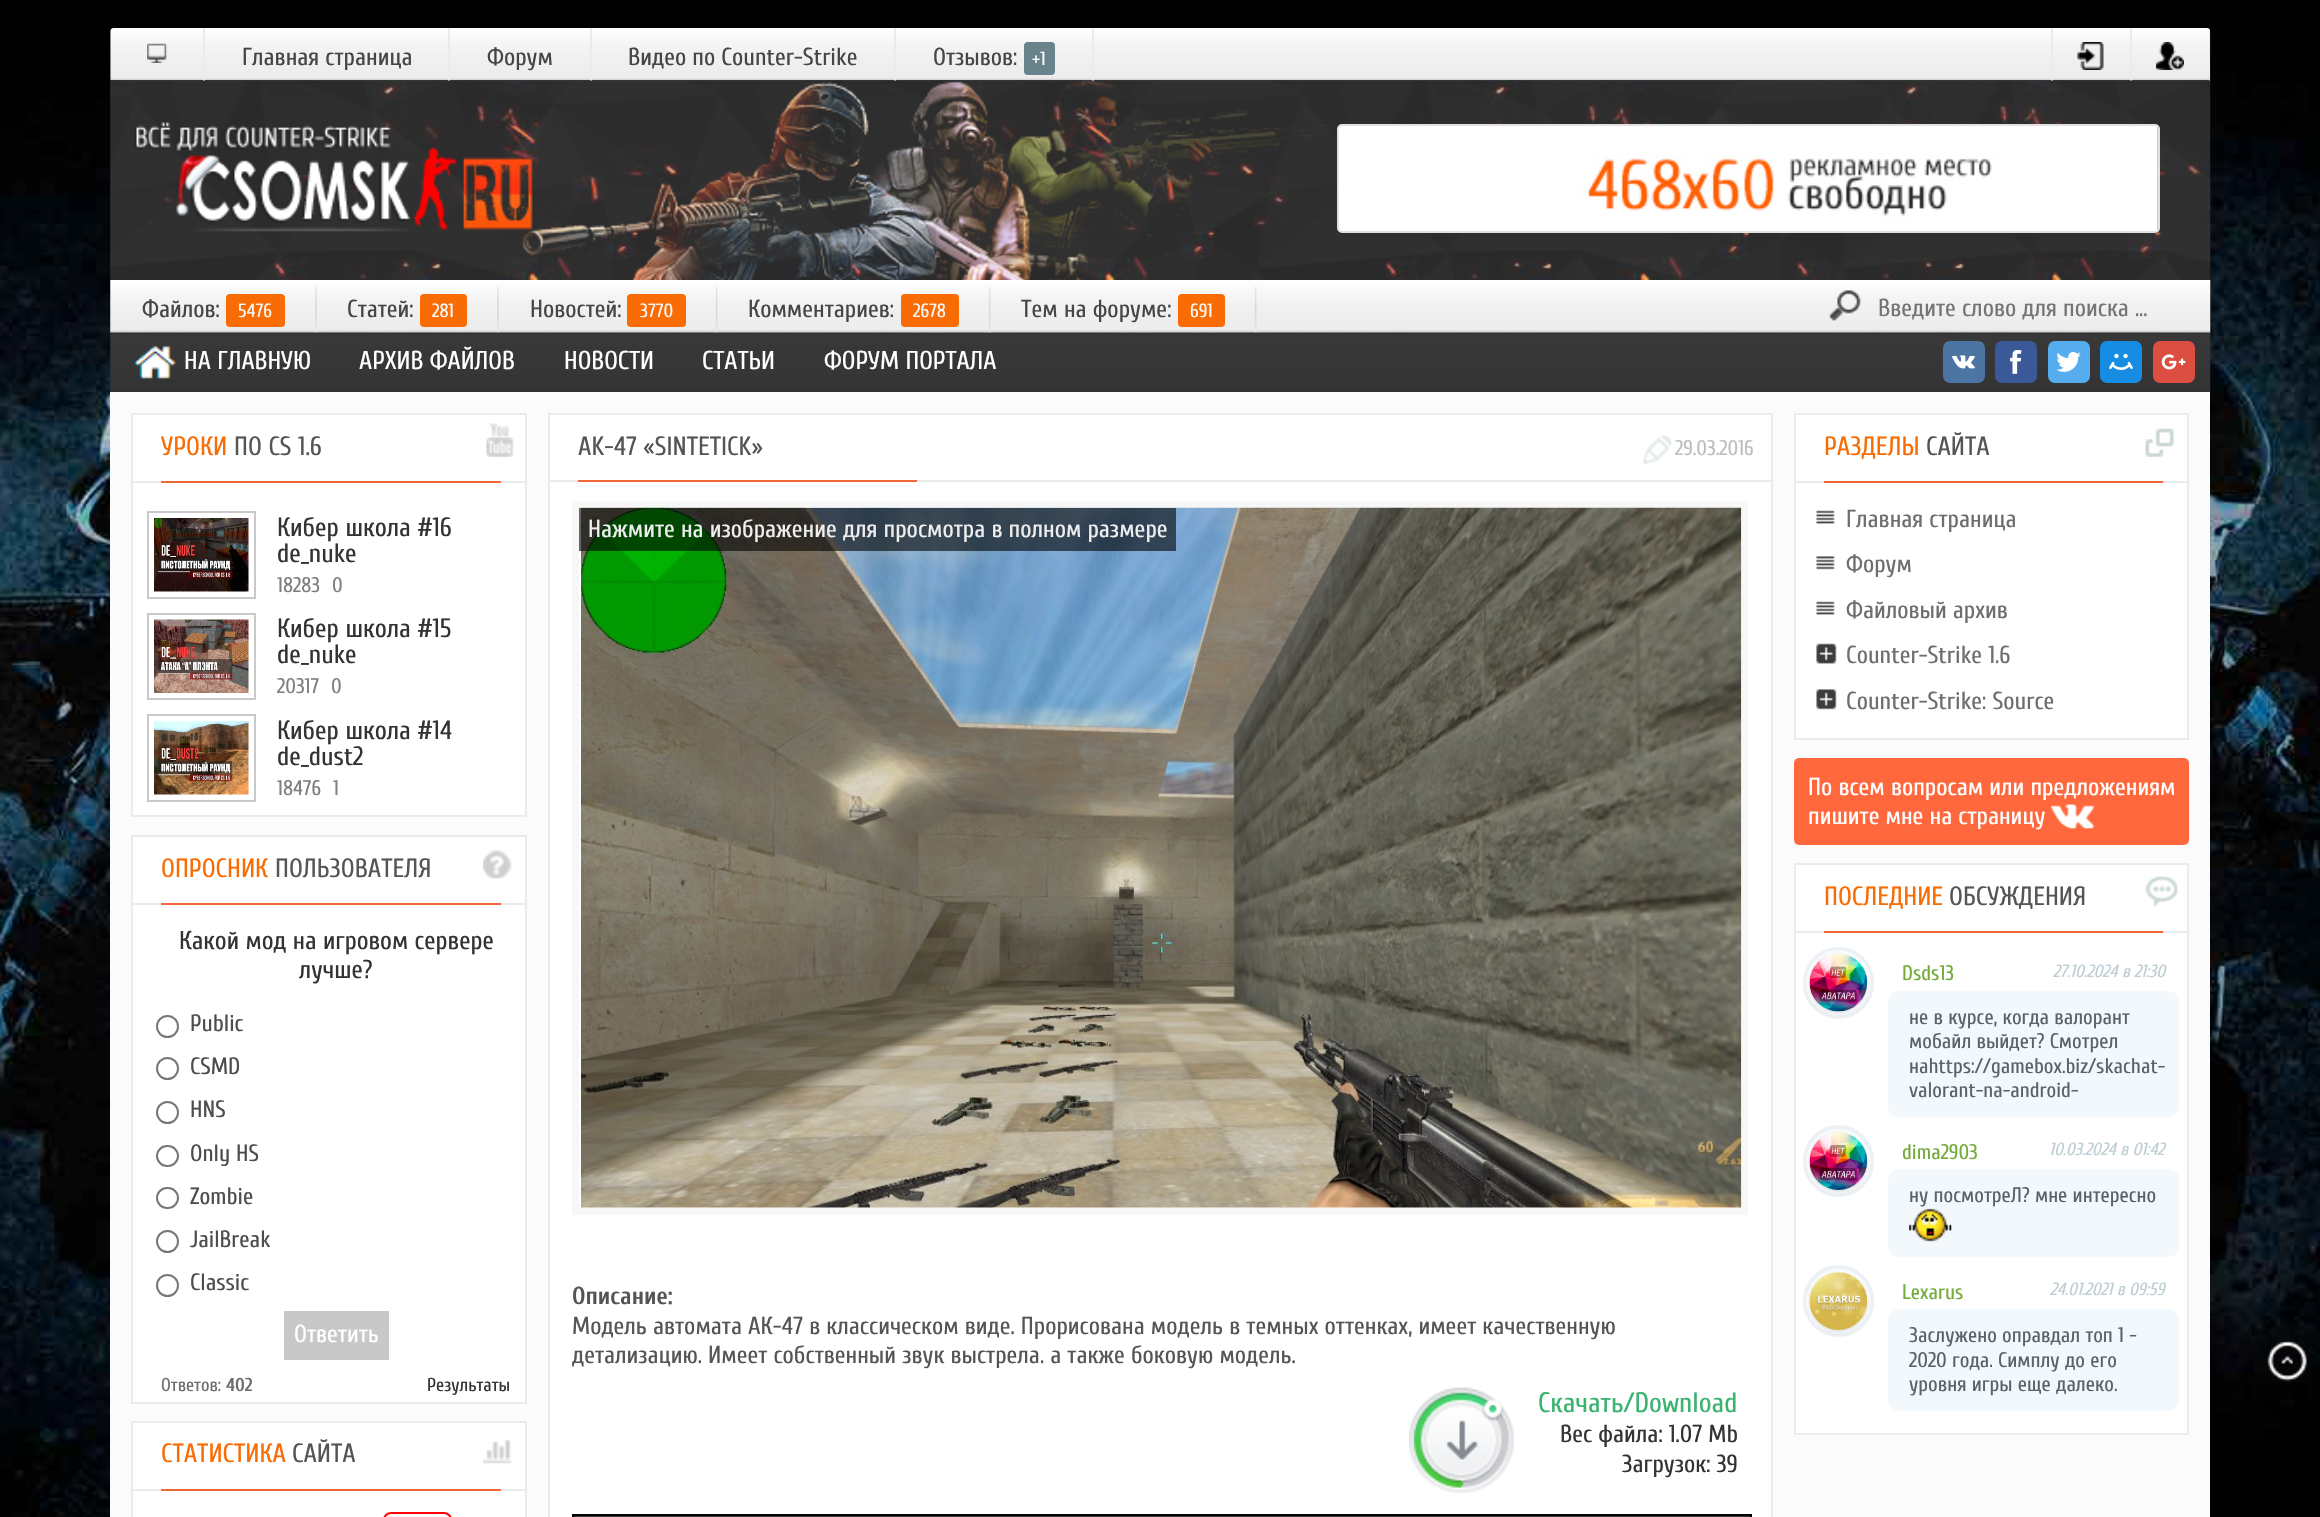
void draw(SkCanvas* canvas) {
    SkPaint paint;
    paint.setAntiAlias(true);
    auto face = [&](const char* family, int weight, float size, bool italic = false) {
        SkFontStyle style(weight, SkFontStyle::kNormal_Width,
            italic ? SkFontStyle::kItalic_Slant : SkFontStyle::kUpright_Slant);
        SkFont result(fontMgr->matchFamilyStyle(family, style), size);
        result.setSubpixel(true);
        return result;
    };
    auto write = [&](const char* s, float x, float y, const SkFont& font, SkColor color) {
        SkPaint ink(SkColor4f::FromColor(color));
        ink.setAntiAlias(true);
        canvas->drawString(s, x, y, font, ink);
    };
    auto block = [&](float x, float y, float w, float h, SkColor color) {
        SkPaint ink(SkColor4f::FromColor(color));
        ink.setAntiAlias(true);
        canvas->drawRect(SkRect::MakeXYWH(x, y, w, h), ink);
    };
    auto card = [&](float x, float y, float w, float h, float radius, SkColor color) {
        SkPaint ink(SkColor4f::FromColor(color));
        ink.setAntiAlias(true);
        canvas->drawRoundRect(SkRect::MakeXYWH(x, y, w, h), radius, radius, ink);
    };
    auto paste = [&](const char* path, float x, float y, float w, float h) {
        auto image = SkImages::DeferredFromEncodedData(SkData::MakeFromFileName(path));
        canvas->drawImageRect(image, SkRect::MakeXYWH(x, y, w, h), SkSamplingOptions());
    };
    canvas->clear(SK_ColorBLACK);
    paste("pic1.png", 0, 31, 2320, 1486);
    paste("pic2.png", 110, 28, 2101, 53);
    paste("pic3.png", 147, 43, 20, 20);
    block(203, 28, 2, 53, SkColorSetRGB(235, 235, 235));
    block(448, 28, 2, 53, SkColorSetRGB(235, 235, 235));
    auto kFont1 = face("Cuprum", 400, 24.5f);
    write("Главная страница", 242, 65, kFont1, SkColorSetRGB(70, 70, 70));
    block(590, 28, 2, 53, SkColorSetRGB(235, 235, 235));
    write("Форум", 487, 65, kFont1, SkColorSetRGB(70, 70, 70));
    block(894, 28, 2, 53, SkColorSetRGB(235, 235, 235));
    write("Видео по Counter-Strike", 628, 65, kFont1, SkColorSetRGB(70, 70, 70));
    block(1092, 28, 2, 53, SkColorSetRGB(235, 235, 235));
    write("Отзывов:", 933, 65, kFont1, SkColorSetRGB(70, 70, 70));
    card(1024, 42, 31, 33, 4, SkColorSetRGB(104, 131, 139));
    auto kFont2 = face("Cuprum", 400, 19);
    write("+1", 1032, 65, kFont2, SkColorSetRGB(247, 247, 247));
    block(2051, 28, 2, 53, SkColorSetRGB(235, 235, 235));
    block(2130, 28, 2, 53, SkColorSetRGB(235, 235, 235));
    paste("pic4.png", 2077, 42, 27, 28);
    canvas->save();
    canvas->clipPath(SkPathBuilder().moveTo(114, 28).lineTo(2206, 28).cubicTo(2208, 28, 2210, 30, 2210, 32).lineTo(2210, 81).lineTo(110, 81).lineTo(110, 32).cubicTo(110, 30, 112, 28, 114, 28).close().detach(), true);
    block(2209, 28, 1, 53, SkColorSetRGB(235, 235, 235));
    canvas->restore();
    paste("pic5.png", 2156, 42, 28, 28);
    paste("pic6.png", 110, 80, 2101, 200);
    paste("pic7.png", 134, 122, 399, 110);
    paste("pic8.png", 1339, 126, 819, 105);
    paint.setStyle(SkPaint::kStroke_Style);
    paint.setStrokeWidth(2);
    paint.setColor(SkColorSetRGB(225, 225, 225));
    canvas->drawRoundRect(SkRect::MakeXYWH(1338, 125, 821, 107), 4, 4, paint);
    paste("pic16.png", 110, 332, 2101, 60);
    paste("pic9.png", 110, 280, 2101, 53);
    paste("pic10.png", 315, 287, 2, 46);
    write("Файлов:", 142, 317, kFont1, SkColorSetRGB(70, 70, 70));
    card(226, 294, 59, 33, 4, SkColorSetRGB(249, 108, 4));
    write("5476", 238, 317, kFont2, SkColorSetRGB(247, 247, 247));
    paste("pic11.png", 497, 287, 2, 46);
    write("Статей:", 347, 317, kFont1, SkColorSetRGB(70, 70, 70));
    card(420, 294, 47, 33, 4, SkColorSetRGB(249, 108, 4));
    write("281", 432, 317, kFont2, SkColorSetRGB(247, 247, 247));
    paste("pic12.png", 715, 287, 3, 46);
    write("Новостей:", 530, 317, kFont1, SkColorSetRGB(70, 70, 70));
    card(627, 294, 59, 33, 4, SkColorSetRGB(249, 108, 4));
    write("3770", 640, 317, kFont2, SkColorSetRGB(247, 247, 247));
    paste("pic13.png", 988, 287, 3, 46);
    write("Комментариев:", 748, 317, kFont1, SkColorSetRGB(70, 70, 70));
    card(901, 294, 58, 33, 4, SkColorSetRGB(249, 108, 4));
    write("2678", 913, 317, kFont2, SkColorSetRGB(247, 247, 247));
    paste("pic14.png", 1254, 287, 3, 46);
    write("Тем на форуме:", 1021, 317, kFont1, SkColorSetRGB(70, 70, 70));
    card(1178, 294, 47, 33, 4, SkColorSetRGB(249, 108, 4));
    write("691", 1190, 317, kFont2, SkColorSetRGB(247, 247, 247));
    paste("pic15.png", 1828, 290, 33, 32);
    write("Введите слово для поиска ...", 1878, 316, kFont1, SkColorSetRGB(117, 117, 117));
    paste("pic17.png", 134, 346, 42, 33);
    auto kFont3 = face("Cuprum", 400, 25.75f);
    write("НА ГЛАВНУЮ", 184, 369, kFont3, SK_ColorWHITE);
    write("АРХИВ ФАЙЛОВ", 359, 369, kFont3, SK_ColorWHITE);
    write("НОВОСТИ", 564, 369, kFont3, SK_ColorWHITE);
    write("СТАТЬИ", 702, 369, kFont3, SK_ColorWHITE);
    write("ФОРУМ ПОРТАЛА", 824, 369, kFont3, SK_ColorWHITE);
    card(1943, 341, 42, 42, 7, SkColorSetRGB(77, 117, 163));
    paste("pic18.png", 1952, 355, 23, 14);
    card(1995, 341, 42, 42, 7, SkColorSetRGB(59, 89, 152));
    paste("pic19.png", 2010, 350, 12, 24);
    card(2048, 341, 42, 42, 7, SkColorSetRGB(85, 172, 238));
    paste("pic20.png", 2056, 351, 25, 21);
    card(2100, 341, 42, 42, 7, SkColorSetRGB(22, 141, 226));
    paste("pic21.png", 2109, 353, 24, 17);
    card(2153, 341, 42, 42, 7, SkColorSetRGB(220, 78, 65));
    paste("pic22.png", 2161, 354, 25, 16);
    block(110, 392, 2100, 1125, SkColorSetRGB(251, 251, 251));
    paint.setStyle(SkPaint::kFill_Style);
    paint.setColor(SK_ColorWHITE);
    canvas->drawRect(SkRect::MakeXYWH(132, 414, 394, 402), paint);
    paint.setStyle(SkPaint::kStroke_Style);
    paint.setColor(SkColorSetRGB(235, 235, 235));
    canvas->drawRect(SkRect::MakeXYWH(132, 414, 394, 402), paint);
    paste("pic23.png", 486, 423, 28, 34);
    block(133, 481, 392, 2, SkColorSetRGB(235, 235, 235));
    auto kFont4 = face("Cuprum", 400, 26.25f);
    write("УРОКИ", 161, 455, kFont4, SkColorSetRGB(249, 108, 4));
    write("ПО CS 1.6", 234, 455, kFont4, SkColorSetRGB(86, 85, 85));
    block(161, 481, 340, 2, SkColorSetRGB(242, 103, 57));
    paint.setColor(SkColorSetRGB(201, 201, 201));
    canvas->drawRect(SkRect::MakeXYWH(148, 512, 107, 86), paint);
    paste("pic24.png", 154, 518, 95, 74);
    write("Кибер школа #16", 277, 536, kFont4, SkColorSetRGB(51, 51, 51));
    write("de_nuke", 277, 562, kFont4, SkColorSetRGB(51, 51, 51));
    auto kFont5 = face("Cuprum", 400, 21);
    write("18283", 277, 592, kFont5, SkColorSetRGB(127, 127, 127));
    write("0", 332, 592, kFont5, SkColorSetRGB(127, 127, 127));
    canvas->drawRect(SkRect::MakeXYWH(148, 614, 107, 85), paint);
    paste("pic25.png", 154, 619, 95, 74);
    write("Кибер школа #15", 277, 637, kFont4, SkColorSetRGB(51, 51, 51));
    write("de_nuke", 277, 663, kFont4, SkColorSetRGB(51, 51, 51));
    write("20317", 277, 693, kFont5, SkColorSetRGB(127, 127, 127));
    write("0", 331, 693, kFont5, SkColorSetRGB(127, 127, 127));
    canvas->drawRect(SkRect::MakeXYWH(148, 715, 107, 86), paint);
    paste("pic26.png", 154, 721, 95, 74);
    write("Кибер школа #14", 277, 739, kFont4, SkColorSetRGB(51, 51, 51));
    write("de_dust2", 277, 765, kFont4, SkColorSetRGB(51, 51, 51));
    write("18476", 277, 795, kFont5, SkColorSetRGB(127, 127, 127));
    write("1", 333, 795, kFont5, SkColorSetRGB(127, 127, 127));
    paint.setStyle(SkPaint::kFill_Style);
    paint.setColor(SK_ColorWHITE);
    canvas->drawRect(SkRect::MakeXYWH(132, 836, 394, 567), paint);
    paint.setStyle(SkPaint::kStroke_Style);
    paint.setColor(SkColorSetRGB(235, 235, 235));
    canvas->drawRect(SkRect::MakeXYWH(132, 836, 394, 567), paint);
    paste("pic27.png", 483, 850, 29, 29);
    block(133, 903, 392, 2, SkColorSetRGB(235, 235, 235));
    write("ОПРОСНИК", 161, 877, kFont4, SkColorSetRGB(249, 108, 4));
    write("ПОЛЬЗОВАТЕЛЯ", 275, 877, kFont4, SkColorSetRGB(86, 85, 85));
    block(161, 903, 340, 2, SkColorSetRGB(242, 103, 57));
    write("Какой мод на игровом сервере", 179, 949, kFont3, SkColorSetRGB(51, 51, 51));
    write("лучше?", 299, 978, kFont3, SkColorSetRGB(51, 51, 51));
    paint.setColor(SkColorSetRGB(118, 118, 118));
    canvas->drawCircle(167.5f, 1026.5f, 10.5f, paint);
    auto kFont6 = face("Cuprum", 400, 23.5f);
    write("Public", 190, 1031, kFont6, SkColorSetRGB(77, 77, 77));
    canvas->drawCircle(167.5f, 1068.5f, 10.5f, paint);
    write("CSMD", 190, 1074, kFont6, SkColorSetRGB(77, 77, 77));
    canvas->drawCircle(167.5f, 1112.5f, 10.5f, paint);
    write("HNS", 190, 1117, kFont6, SkColorSetRGB(77, 77, 77));
    canvas->drawRoundRect(SkRect::MakeXYWH(157, 1146, 21, 20), 10, 10, paint);
    write("Only HS", 190, 1161, kFont6, SkColorSetRGB(77, 77, 77));
    canvas->drawRoundRect(SkRect::MakeXYWH(157, 1188, 21, 20), 10, 10, paint);
    write("Zombie", 190, 1204, kFont6, SkColorSetRGB(77, 77, 77));
    canvas->drawCircle(167.5f, 1241.5f, 10.5f, paint);
    write("JailBreak", 190, 1247, kFont6, SkColorSetRGB(77, 77, 77));
    canvas->drawCircle(167.5f, 1285.5f, 10.5f, paint);
    write("Classic", 190, 1290, kFont6, SkColorSetRGB(77, 77, 77));
    block(284, 1311, 105, 49, SkColorSetRGB(200, 200, 200));
    write("Ответить", 294, 1342, kFont1, SK_ColorWHITE);
    auto kFont7 = face("Cuprum", 400, 18.5f);
    write("Ответов:", 161, 1391, kFont7, SkColorSetRGB(110, 110, 110));
    auto kFont8 = face("Cuprum", 700, 18.5f);
    write("402", 226, 1391, kFont8, SkColorSetRGB(110, 110, 110));
    write("Результаты", 427, 1391, kFont7, SkColorSetRGB(51, 51, 51));
    paint.setStyle(SkPaint::kFill_Style);
    paint.setColor(SK_ColorWHITE);
    canvas->drawRect(SkRect::MakeXYWH(132, 1422, 394, 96), paint);
    paint.setStyle(SkPaint::kStroke_Style);
    paint.setColor(SkColorSetRGB(235, 235, 235));
    canvas->drawRect(SkRect::MakeXYWH(132, 1422, 394, 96), paint);
    paste("pic28.png", 483, 1440, 29, 24);
    block(133, 1489, 392, 2, SkColorSetRGB(235, 235, 235));
    write("СТАТИСТИКА", 161, 1462, kFont4, SkColorSetRGB(249, 108, 4));
    write("САЙТА", 292, 1462, kFont4, SkColorSetRGB(86, 85, 85));
    block(161, 1489, 340, 2, SkColorSetRGB(242, 103, 57));
    paint.setColor(SkColorSetRGB(255, 0, 0));
    canvas->drawRoundRect(SkRect::MakeXYWH(384, 1513, 67, 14), 8, 8, paint);
    paint.setStyle(SkPaint::kFill_Style);
    paint.setColor(SK_ColorWHITE);
    canvas->drawRect(SkRect::MakeXYWH(549, 414, 1223, 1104), paint);
    paint.setStyle(SkPaint::kStroke_Style);
    paint.setColor(SkColorSetRGB(235, 235, 235));
    canvas->drawRect(SkRect::MakeXYWH(549, 414, 1223, 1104), paint);
    block(550, 480, 1221, 2, SkColorSetRGB(235, 235, 235));
    write("AK-47 «SINTETICK»", 578, 455, kFont4, SkColorSetRGB(86, 85, 85));
    paste("pic29.png", 1643, 435, 29, 29);
    write("29.03.2016", 1675, 455, kFont5, SkColorSetRGB(190, 190, 190));
    block(578, 480, 339, 2, SkColorSetRGB(242, 103, 57));
    paint.setStrokeWidth(7);
    paint.setColor(SkColorSetRGB(247, 247, 247));
    canvas->drawRect(SkRect::MakeXYWH(575.5f, 504.5f, 1169, 707), paint);
    paste("pic30.png", 581, 507, 1161, 701);
    block(579, 508, 597, 43, SkColorSetARGB(153, 0, 0, 0));
    write("Нажмите на изображение для просмотра в полном размере", 588, 537, kFont1, SkColorSetRGB(238, 238, 238));
    auto kFont9 = face("Cuprum", 700, 24.5f);
    write("Описание:", 572, 1304, kFont9, SkColorSetRGB(86, 85, 85));
    write("Модель автомата АК-47 в классическом виде. Прорисована модель в темных оттенках, имеет качественную", 572, 1334, kFont1, SkColorSetRGB(86, 85, 85));
    write("детализацию. Имеет собственный звук выстрела. а также боковую модель.", 572, 1363, kFont1, SkColorSetRGB(86, 85, 85));
    paste("pic31.png", 1409, 1387, 105, 106);
    auto kFont10 = face("Cuprum", 400, 28);
    write("Скачать/Download", 1538, 1412, kFont10, SkColorSetRGB(60, 179, 113));
    write("Вес файла: 1.07 Mb", 1560, 1442, kFont1, SkColorSetRGB(51, 51, 51));
    write("Загрузок: 39", 1622, 1472, kFont1, SkColorSetRGB(51, 51, 51));
    paint.setStrokeWidth(2);
    paint.setColor(SK_ColorBLACK);
    canvas->drawRect(SkRect::MakeXYWH(573, 1515, 1178, 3), paint);
    block(574, 1516, 1176, 1, SkColorSetRGB(50, 50, 50));
    paste("pic32.png", 574, 1515, 1176, 2);
    paint.setStyle(SkPaint::kFill_Style);
    paint.setColor(SK_ColorWHITE);
    canvas->drawRect(SkRect::MakeXYWH(1795, 414, 393, 325), paint);
    paint.setStyle(SkPaint::kStroke_Style);
    paint.setColor(SkColorSetRGB(235, 235, 235));
    canvas->drawRect(SkRect::MakeXYWH(1795, 414, 393, 325), paint);
    paste("pic33.png", 2145, 428, 29, 29);
    block(1796, 481, 392, 2, SkColorSetRGB(235, 235, 235));
    write("РАЗДЕЛЫ", 1824, 455, kFont4, SkColorSetRGB(249, 108, 4));
    write("САЙТА", 1926, 455, kFont4, SkColorSetRGB(86, 85, 85));
    block(1824, 481, 339, 2, SkColorSetRGB(242, 103, 57));
    paste("pic34.png", 1816, 510, 19, 14);
    write("Главная страница", 1846, 527, kFont1, SkColorSetRGB(110, 110, 110));
    paste("pic35.png", 1816, 556, 19, 14);
    write("Форум", 1846, 572, kFont1, SkColorSetRGB(110, 110, 110));
    paste("pic34.png", 1816, 601, 19, 14);
    write("Файловый архив", 1846, 618, kFont1, SkColorSetRGB(110, 110, 110));
    paste("pic36.png", 1816, 643, 21, 21);
    write("Counter-Strike 1.6", 1846, 663, kFont1, SkColorSetRGB(110, 110, 110));
    paste("pic37.png", 1816, 689, 21, 21);
    write("Counter-Strike: Source", 1846, 709, kFont1, SkColorSetRGB(110, 110, 110));
    card(1794, 758, 395, 87, 5, SkColorSetRGB(255, 103, 61));
    write("По всем вопросам или предложениям", 1808, 795, kFont1, SK_ColorWHITE);
    write("пишите мне на страницу", 1808, 824, kFont1, SK_ColorWHITE);
    paste("pic38.png", 2051, 804, 43, 25);
    paint.setStyle(SkPaint::kFill_Style);
    paint.setColor(SK_ColorWHITE);
    canvas->drawRect(SkRect::MakeXYWH(1795, 864, 393, 570), paint);
    paint.setStyle(SkPaint::kStroke_Style);
    paint.setColor(SkColorSetRGB(235, 235, 235));
    canvas->drawRect(SkRect::MakeXYWH(1795, 864, 393, 570), paint);
    paste("pic39.png", 2145, 876, 33, 31);
    block(1796, 931, 392, 2, SkColorSetRGB(235, 235, 235));
    write("ПОСЛЕДНИЕ", 1824, 905, kFont4, SkColorSetRGB(249, 108, 4));
    write("ОБСУЖДЕНИЯ", 1949, 905, kFont4, SkColorSetRGB(86, 85, 85));
    block(1824, 931, 339, 2, SkColorSetRGB(242, 103, 57));
    paint.setStrokeWidth(4);
    paint.setColor(SkColorSetRGB(236, 241, 245));
    canvas->drawRoundRect(SkRect::MakeXYWH(1805, 949, 67, 68), 33.5f, 33.5f, paint);
    paint.setStyle(SkPaint::kFill_Style);
    paint.setColor(SkColorSetRGB(249, 251, 252));
    canvas->drawCircle(1838.5f, 982.5f, 32.5f, paint);
    paint.setColor(SkColorSetARGB(28, 0, 0, 0));
    paint.setMaskFilter(SkMaskFilter::MakeBlur(kNormal_SkBlurStyle, 2));
    canvas->drawRoundRect(SkRect::MakeXYWH(1810, 956, 57, 57), 28.5f, 28.5f, paint);
    paint.setMaskFilter(nullptr);
    paste("pic40.png", 1809, 954, 59, 58);
    write("Dsds13", 1902, 980, kFont5, SkColorSetRGB(115, 172, 58));
    auto kFont11 = face("Cuprum", 400, 17.5f, true);
    write("27.10.2024 в 21:30", 2053, 977, kFont11, SkColorSetRGB(190, 206, 212));
    card(1888, 991, 291, 126, 11, SkColorSetRGB(242, 248, 251));
    write("не в курсе, когда валорант", 1909, 1024, kFont5, SkColorSetRGB(89, 99, 107));
    write("мобайл выйдет? Смотрел", 1909, 1048, kFont5, SkColorSetRGB(89, 99, 107));
    write("наhttps://gamebox.biz/skachat-", 1909, 1073, kFont5, SkColorSetRGB(89, 99, 107));
    write("valorant-na-android-", 1909, 1097, kFont5, SkColorSetRGB(89, 99, 107));
    paint.setStyle(SkPaint::kStroke_Style);
    paint.setColor(SkColorSetRGB(236, 241, 245));
    canvas->drawRoundRect(SkRect::MakeXYWH(1805, 1127, 67, 68), 33.5f, 33.5f, paint);
    paint.setStyle(SkPaint::kFill_Style);
    paint.setColor(SkColorSetRGB(249, 251, 252));
    canvas->drawCircle(1838.5f, 1161.5f, 32.5f, paint);
    paint.setColor(SkColorSetARGB(28, 0, 0, 0));
    paint.setMaskFilter(SkMaskFilter::MakeBlur(kNormal_SkBlurStyle, 2));
    canvas->drawRoundRect(SkRect::MakeXYWH(1810, 1134, 57, 58), 28.5f, 28.5f, paint);
    paint.setMaskFilter(nullptr);
    paste("pic41.png", 1809, 1132, 59, 58);
    write("dima2903", 1902, 1159, kFont5, SkColorSetRGB(115, 172, 58));
    write("10.03.2024 в 01:42", 2049, 1155, kFont11, SkColorSetRGB(190, 206, 212));
    card(1888, 1169, 291, 88, 11, SkColorSetRGB(242, 248, 251));
    write("ну посмотреЛ? мне интересно", 1909, 1202, kFont5, SkColorSetRGB(89, 99, 107));
    paste("pic42.png", 1909, 1208, 43, 34);
    paint.setStyle(SkPaint::kStroke_Style);
    paint.setColor(SkColorSetRGB(236, 241, 245));
    canvas->drawRoundRect(SkRect::MakeXYWH(1805, 1267, 67, 68), 33.5f, 33.5f, paint);
    paint.setStyle(SkPaint::kFill_Style);
    paint.setColor(SkColorSetRGB(249, 251, 252));
    canvas->drawCircle(1838.5f, 1301.5f, 32.5f, paint);
    paint.setColor(SkColorSetARGB(28, 0, 0, 0));
    paint.setMaskFilter(SkMaskFilter::MakeBlur(kNormal_SkBlurStyle, 2));
    canvas->drawRoundRect(SkRect::MakeXYWH(1810, 1274, 57, 58), 28.5f, 28.5f, paint);
    paint.setMaskFilter(nullptr);
    paste("pic43.png", 1809, 1272, 59, 58);
    write("Lexarus", 1902, 1299, kFont5, SkColorSetRGB(115, 172, 58));
    write("24.01.2021 в 09:59", 2050, 1295, kFont11, SkColorSetRGB(190, 206, 212));
    card(1888, 1309, 291, 102, 11, SkColorSetRGB(242, 248, 251));
    write("Заслужено оправдал топ 1 -", 1909, 1342, kFont5, SkColorSetRGB(89, 99, 107));
    write("2020 года. Симплу до его", 1909, 1367, kFont5, SkColorSetRGB(89, 99, 107));
    write("уровня игры еще далеко.", 1909, 1391, kFont5, SkColorSetRGB(89, 99, 107));
    paste("pic44.png", 2254, 1328, 59, 54);
}
